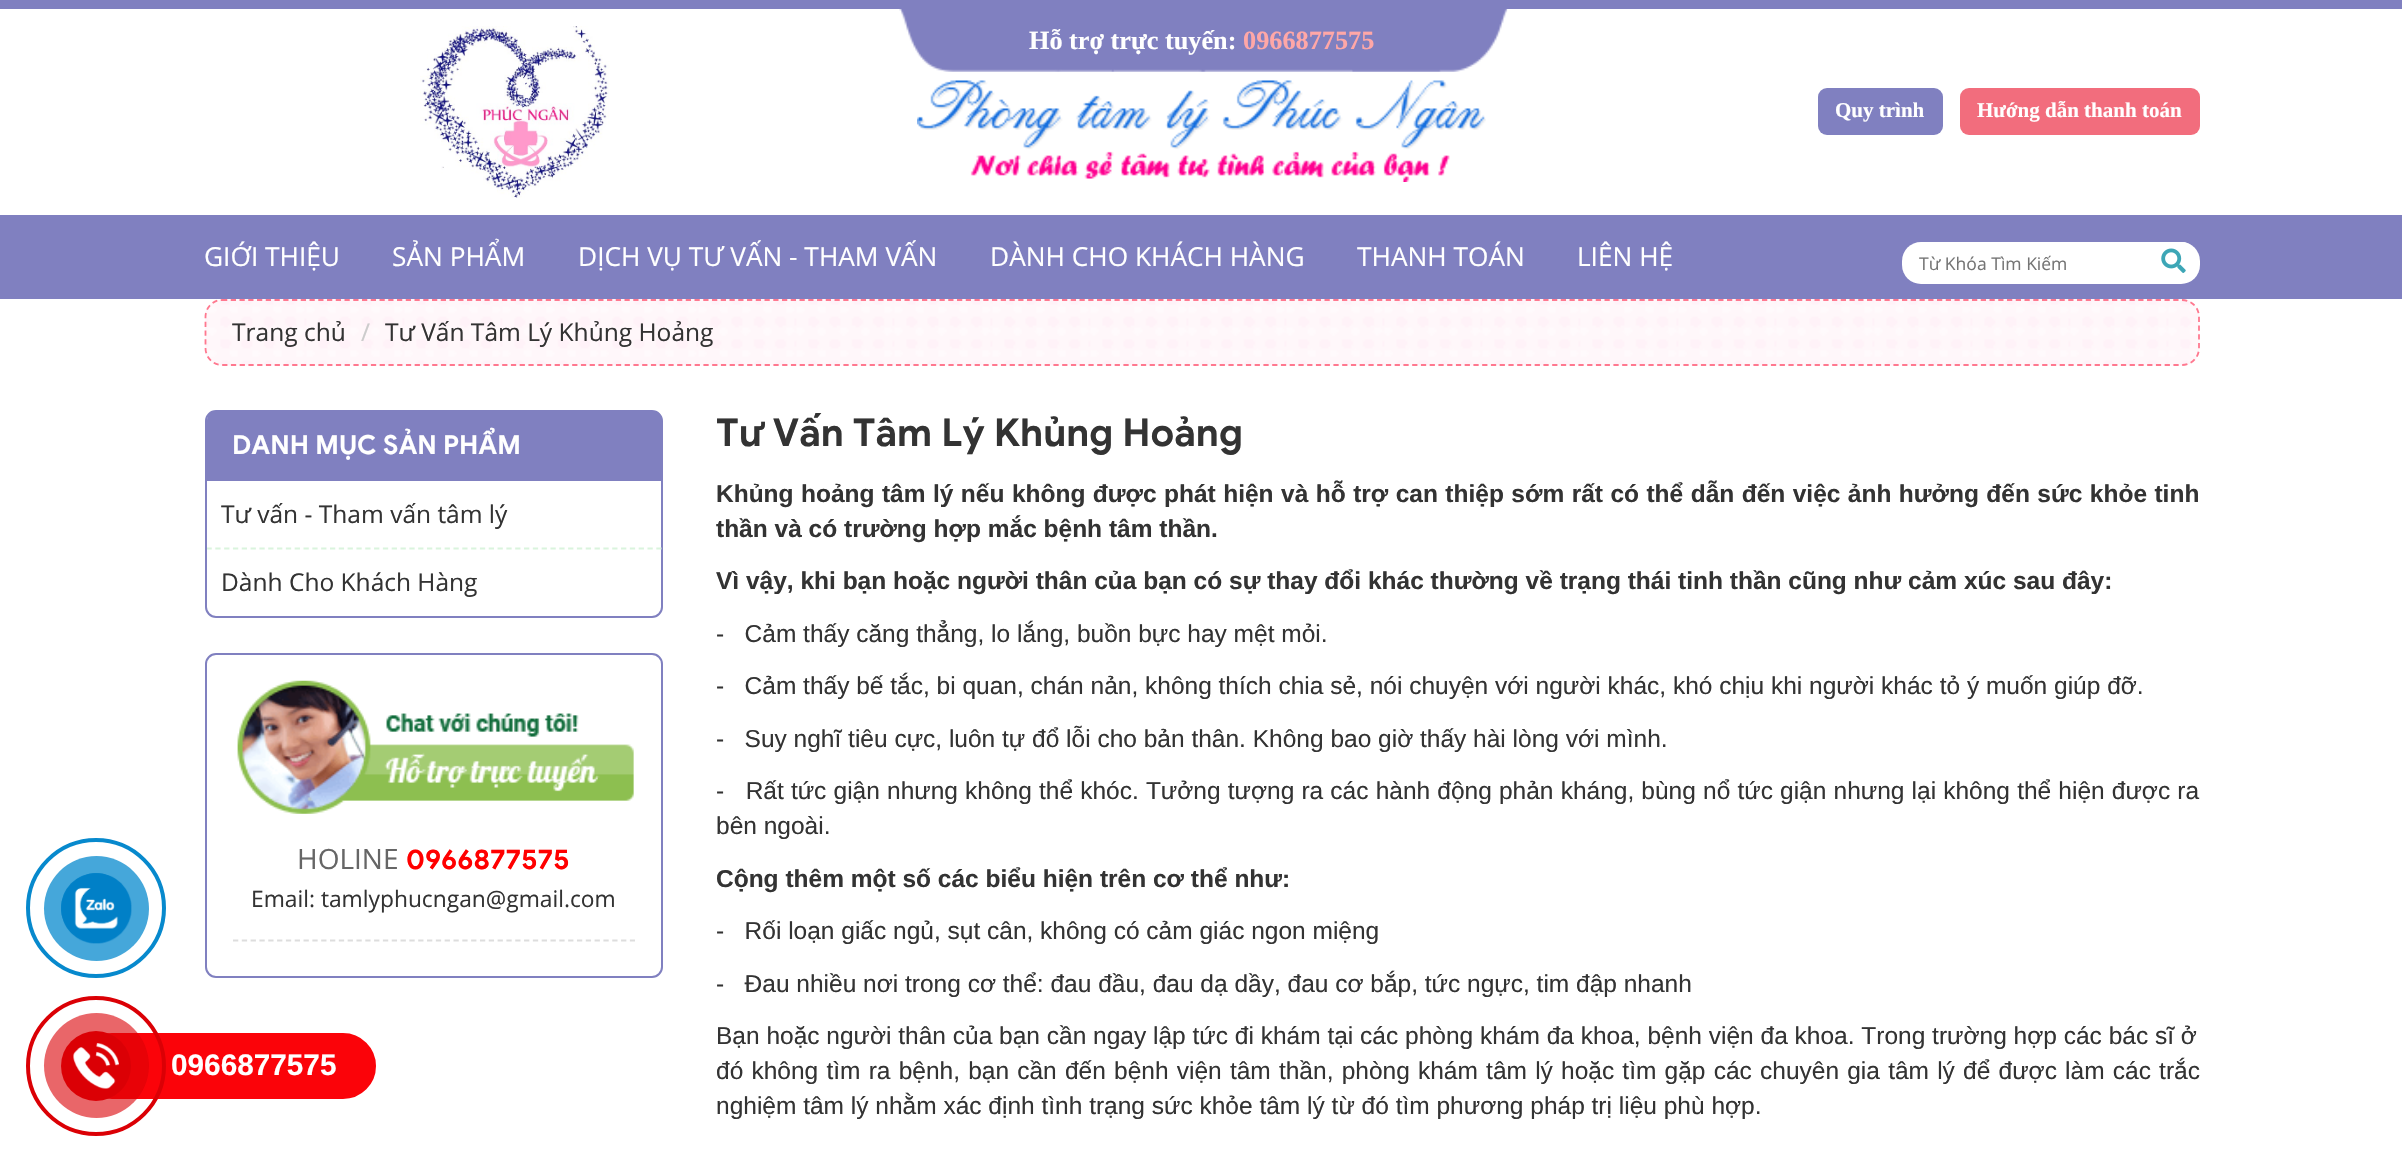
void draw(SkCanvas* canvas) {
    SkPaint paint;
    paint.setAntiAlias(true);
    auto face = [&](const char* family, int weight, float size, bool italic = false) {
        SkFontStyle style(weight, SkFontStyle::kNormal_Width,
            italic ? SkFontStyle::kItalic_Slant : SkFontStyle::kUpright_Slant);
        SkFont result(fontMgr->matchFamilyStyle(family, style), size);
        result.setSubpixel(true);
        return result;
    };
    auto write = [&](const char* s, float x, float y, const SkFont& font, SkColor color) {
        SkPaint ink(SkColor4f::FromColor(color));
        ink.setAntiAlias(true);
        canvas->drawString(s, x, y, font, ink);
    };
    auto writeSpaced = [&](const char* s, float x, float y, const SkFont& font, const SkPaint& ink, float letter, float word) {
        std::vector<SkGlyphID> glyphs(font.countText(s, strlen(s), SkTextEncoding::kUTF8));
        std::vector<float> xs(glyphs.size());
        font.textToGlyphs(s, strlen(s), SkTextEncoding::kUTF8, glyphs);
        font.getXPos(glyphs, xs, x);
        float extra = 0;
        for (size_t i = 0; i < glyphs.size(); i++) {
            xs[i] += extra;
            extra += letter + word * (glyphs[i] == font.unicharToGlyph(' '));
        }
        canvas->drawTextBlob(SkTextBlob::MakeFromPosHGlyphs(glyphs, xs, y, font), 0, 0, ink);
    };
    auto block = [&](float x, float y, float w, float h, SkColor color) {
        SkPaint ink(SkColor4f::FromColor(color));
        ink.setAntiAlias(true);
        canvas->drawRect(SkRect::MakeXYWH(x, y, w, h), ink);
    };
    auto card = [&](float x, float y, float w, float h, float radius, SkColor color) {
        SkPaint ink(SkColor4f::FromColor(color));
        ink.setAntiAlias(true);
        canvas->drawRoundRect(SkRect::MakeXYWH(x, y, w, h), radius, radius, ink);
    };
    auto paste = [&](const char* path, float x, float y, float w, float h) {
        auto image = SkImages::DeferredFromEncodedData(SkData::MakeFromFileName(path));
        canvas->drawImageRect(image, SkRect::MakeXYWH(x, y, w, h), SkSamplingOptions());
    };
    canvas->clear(SK_ColorWHITE);
    block(0, 0, 2402, 9, SkColorSetRGB(128, 128, 192));
    paste("pic1.png", 420, 26, 190, 172);
    paste("pic2.png", 899, 9, 609, 63);
    auto kFont1 = face("Liberation Serif", 700, 26.25f);
    write("Hỗ trợ trực tuyến:", 1029, 49, kFont1, SK_ColorWHITE);
    write("0966877575", 1243, 49, kFont1, SkColorSetRGB(255, 167, 167));
    paste("pic3.png", 917, 80, 569, 102);
    card(1818, 88, 125, 47, 9, SkColorSetRGB(128, 128, 192));
    auto kFont2 = face("Liberation Serif", 700, 21);
    write("Quy trình", 1835, 117, kFont2, SK_ColorWHITE);
    card(1960, 88, 240, 47, 9, SkColorSetRGB(242, 109, 125));
    write("Hướng dẫn thanh toán", 1977, 117, kFont2, SK_ColorWHITE);
    block(0, 215, 2402, 84, SkColorSetRGB(128, 128, 192));
    auto kFont3 = face("Open Sans", 400, 26.25f);
    write("GIỚI THIỆU", 204, 266, kFont3, SK_ColorWHITE);
    write("SẢN PHẨM", 392, 266, kFont3, SK_ColorWHITE);
    write("DỊCH VỤ TƯ VẤN - THAM VẤN", 578, 266, kFont3, SK_ColorWHITE);
    write("DÀNH CHO KHÁCH HÀNG", 990, 266, kFont3, SK_ColorWHITE);
    write("THANH TOÁN", 1357, 266, kFont3, SK_ColorWHITE);
    write("LIÊN HỆ", 1577, 266, kFont3, SK_ColorWHITE);
    card(1902, 242, 298, 42, 19, SK_ColorWHITE);
    auto kFont4 = face("Open Sans", 400, 17.5f);
    write("Từ Khóa Tìm Kiếm", 1919, 270, kFont4, SkColorSetRGB(117, 117, 117));
    card(2151, 242, 45, 38, 14, SK_ColorWHITE);
    paste("pic4.png", 2161, 248, 25, 25);
    paint.setStyle(SkPaint::kStroke_Style);
    paint.setStrokeWidth(4);
    paint.setColor(SkColorSetRGB(7, 137, 205));
    canvas->drawCircle(96, 908, 68, paint);
    paint.setStyle(SkPaint::kFill_Style);
    paint.setColor(SkColorSetRGB(69, 167, 218));
    canvas->drawCircle(96.5f, 908.5f, 52.5f, paint);
    paint.setColor(SkColorSetRGB(7, 137, 205));
    canvas->drawCircle(96, 908, 35, paint);
    paste("pic5.png", 61, 873, 71, 71);
    paste("pic6.png", 205, 299, 1995, 67);
    paint.setStyle(SkPaint::kStroke_Style);
    paint.setStrokeWidth(1.8f);
    paint.setColor(SkColorSetRGB(255, 120, 143));
    paint.setPathEffect(SkDashPathEffect::Make({{5.25f, 3.5f}}, 0));
    canvas->drawPath(SkPathBuilder().moveTo(222, 300).lineTo(2182, 300).cubicTo(2191.5f, 300, 2199, 307.5f, 2199, 317).lineTo(2199, 348).cubicTo(2199, 357.5f, 2191.5f, 365, 2182, 365).lineTo(222, 365).cubicTo(213, 365, 205.5f, 357.5f, 205.5f, 348).lineTo(205.5f, 317).cubicTo(205.5f, 307.5f, 213, 300, 222, 300).close().detach(), paint);
    paint.setPathEffect(nullptr);
    auto kFont5 = face("Open Sans", 400, 24.5f);
    write("Trang chủ", 232, 341, kFont5, SkColorSetRGB(51, 51, 51));
    write("/", 361, 341, kFont5, SkColorSetRGB(204, 204, 204));
    write("Tư Vấn Tâm Lý Khủng Hoảng", 385, 341, kFont5, SkColorSetRGB(51, 51, 51));
    paint.setStrokeWidth(2);
    paint.setColor(SkColorSetRGB(128, 128, 192));
    canvas->drawRoundRect(SkRect::MakeXYWH(206, 411, 456, 206), 10, 10, paint);
    paint.setStyle(SkPaint::kFill_Style);
    canvas->drawPath(SkPathBuilder().moveTo(216, 411).lineTo(653, 411).cubicTo(658, 411, 662, 415, 662, 420).lineTo(662, 481).lineTo(207, 481).lineTo(207, 420).cubicTo(207, 415, 211, 411, 216, 411).close().detach(), paint);
    auto kFont6 = face("Google Sans", 700, 26.25f);
    write("DANH MỤC SẢN PHẨM", 232, 454, kFont6, SK_ColorWHITE);
    canvas->save();
    canvas->clipPath(SkPathBuilder().moveTo(216, 411).lineTo(653, 411).cubicTo(658, 411, 662, 415, 662, 420).lineTo(662, 607).cubicTo(662, 612, 658, 616, 653, 616).lineTo(216, 616).cubicTo(211, 616, 207, 612, 207, 607).lineTo(207, 420).cubicTo(207, 415, 211, 411, 216, 411).close().detach(), true);
    paint.setStyle(SkPaint::kStroke_Style);
    paint.setStrokeWidth(1.8f);
    paint.setColor(SkColorSetRGB(218, 244, 221));
    paint.setPathEffect(SkDashPathEffect::Make({{5.25f, 3.57f}}, 0));
    canvas->drawPath(SkPathBuilder().moveTo(206.5f, 548.5f).lineTo(661.5f, 548.5f).detach(), paint);
    paint.setPathEffect(nullptr);
    canvas->restore();
    write("Tư vấn - Tham vấn tâm lý", 221, 523, kFont5, SkColorSetRGB(51, 51, 51));
    write("Dành Cho Khách Hàng", 221, 591, kFont5, SkColorSetRGB(51, 51, 51));
    paint.setStrokeWidth(2);
    paint.setColor(SkColorSetRGB(128, 128, 192));
    canvas->drawRoundRect(SkRect::MakeXYWH(206, 654, 456, 323), 10, 10, paint);
    paste("pic7.png", 237, 680, 397, 134);
    paint.setStrokeWidth(1.8f);
    paint.setColor(SkColorSetRGB(221, 221, 221));
    paint.setPathEffect(SkDashPathEffect::Make({{5.25f, 3.57f}}, 0));
    canvas->drawPath(SkPathBuilder().moveTo(233, 940.5f).lineTo(635, 940.5f).detach(), paint);
    paint.setPathEffect(nullptr);
    auto kFont7 = face("Open Sans", 400, 28);
    write("HOLINE", 297, 869, kFont7, SkColorSetRGB(102, 102, 102));
    auto kFont8 = face("Google Sans", 700, 28);
    write("0966877575", 406, 869, kFont8, SkColorSetRGB(255, 0, 0));
    auto kFont9 = face("Open Sans", 400, 22.75f);
    write("Email: tamlyphucngan@gmail.com", 251, 907, kFont9, SkColorSetRGB(51, 51, 51));
    auto kFont10 = face("Google Sans", 700, 38.5f);
    write("Tư Vấn Tâm Lý Khủng Hoảng", 716, 446, kFont10, SkColorSetRGB(51, 51, 51));
    auto kFont11 = face("Liberation Sans", 700, 24.5f);
    paint.setStyle(SkPaint::kFill_Style);
    paint.setColor(SkColorSetRGB(51, 51, 51));
    writeSpaced("Khủng hoảng tâm lý nếu không được phát hiện và hỗ trợ can thiệp sớm rất có thể dẫn đến việc ảnh hưởng đến sức khỏe tinh", 716, 502, kFont11, paint, 0, 0.65f);
    write("thần và có trường hợp mắc bệnh tâm thần.", 716, 537, kFont11, SkColorSetRGB(51, 51, 51));
    write("Vì vậy, khi bạn hoặc người thân của bạn có sự thay đổi khác thường về trạng thái tinh thần cũng như cảm xúc sau đây:", 716, 589, kFont11, SkColorSetRGB(51, 51, 51));
    auto kFont12 = face("Liberation Sans", 400, 24.5f);
    write("-   Cảm thấy căng thẳng, lo lắng, buồn bực hay mệt mỏi.", 716, 642, kFont12, SkColorSetRGB(51, 51, 51));
    write("-   Cảm thấy bế tắc, bi quan, chán nản, không thích chia sẻ, nói chuyện với người khác, khó chịu khi người khác tỏ ý muốn giúp đỡ.", 716, 694, kFont12, SkColorSetRGB(51, 51, 51));
    write("-   Suy nghĩ tiêu cực, luôn tự đổ lỗi cho bản thân. Không bao giờ thấy hài lòng với mình.", 716, 747, kFont12, SkColorSetRGB(51, 51, 51));
    writeSpaced("-   Rất tức giận nhưng không thể khóc. Tưởng tượng ra các hành động phản kháng, bùng nổ tức giận nhưng lại không thể hiện được ra", 716, 799, kFont12, paint, 0, 0.35f);
    write("bên ngoài.", 716, 834, kFont12, SkColorSetRGB(51, 51, 51));
    write("Cộng thêm một số các biểu hiện trên cơ thể như:", 716, 887, kFont11, SkColorSetRGB(51, 51, 51));
    write("-   Rối loạn giấc ngủ, sụt cân, không có cảm giác ngon miệng", 716, 939, kFont12, SkColorSetRGB(51, 51, 51));
    write("-   Đau nhiều nơi trong cơ thể: đau đầu, đau dạ dầy, đau cơ bắp, tức ngực, tim đập nhanh", 716, 992, kFont12, SkColorSetRGB(51, 51, 51));
    write("Bạn hoặc người thân của bạn cần ngay lập tức đi khám tại các phòng khám đa khoa, bệnh viện đa khoa. Trong trường hợp các bác sĩ ở", 716, 1044, kFont12, SkColorSetRGB(51, 51, 51));
    writeSpaced("đó không tìm ra bệnh, bạn cần đến bệnh viện tâm thần, phòng khám tâm lý hoặc tìm gặp các chuyên gia tâm lý để được làm các trắc", 716, 1079, kFont12, paint, 0, 1.4f);
    write("nghiệm tâm lý nhằm xác định tình trạng sức khỏe tâm lý từ đó tìm phương pháp trị liệu phù hợp.", 716, 1114, kFont12, SkColorSetRGB(51, 51, 51));
    paint.setColor(SkColorSetRGB(251, 3, 9));
    canvas->drawRoundRect(SkRect::MakeXYWH(80, 1034, 295, 64), 32, 32, paint);
    paint.setStyle(SkPaint::kStroke_Style);
    paint.setStrokeWidth(2);
    canvas->drawRoundRect(SkRect::MakeXYWH(80, 1034, 295, 64), 32, 32, paint);
    paint.setStrokeWidth(4);
    paint.setColor(SkColorSetRGB(219, 0, 5));
    canvas->drawCircle(96, 1066, 68, paint);
    paint.setStyle(SkPaint::kFill_Style);
    paint.setColor(SkColorSetARGB(153, 219, 0, 5));
    canvas->drawCircle(96.5f, 1065.5f, 52.5f, paint);
    paint.setColor(SkColorSetRGB(219, 0, 5));
    canvas->drawCircle(96, 1066, 35, paint);
    paste("pic8.png", 73, 1043, 46, 46);
    auto kFont13 = face("Liberation Sans", 700, 29.75f);
    write("0966877575", 171, 1075, kFont13, SK_ColorWHITE);
}
